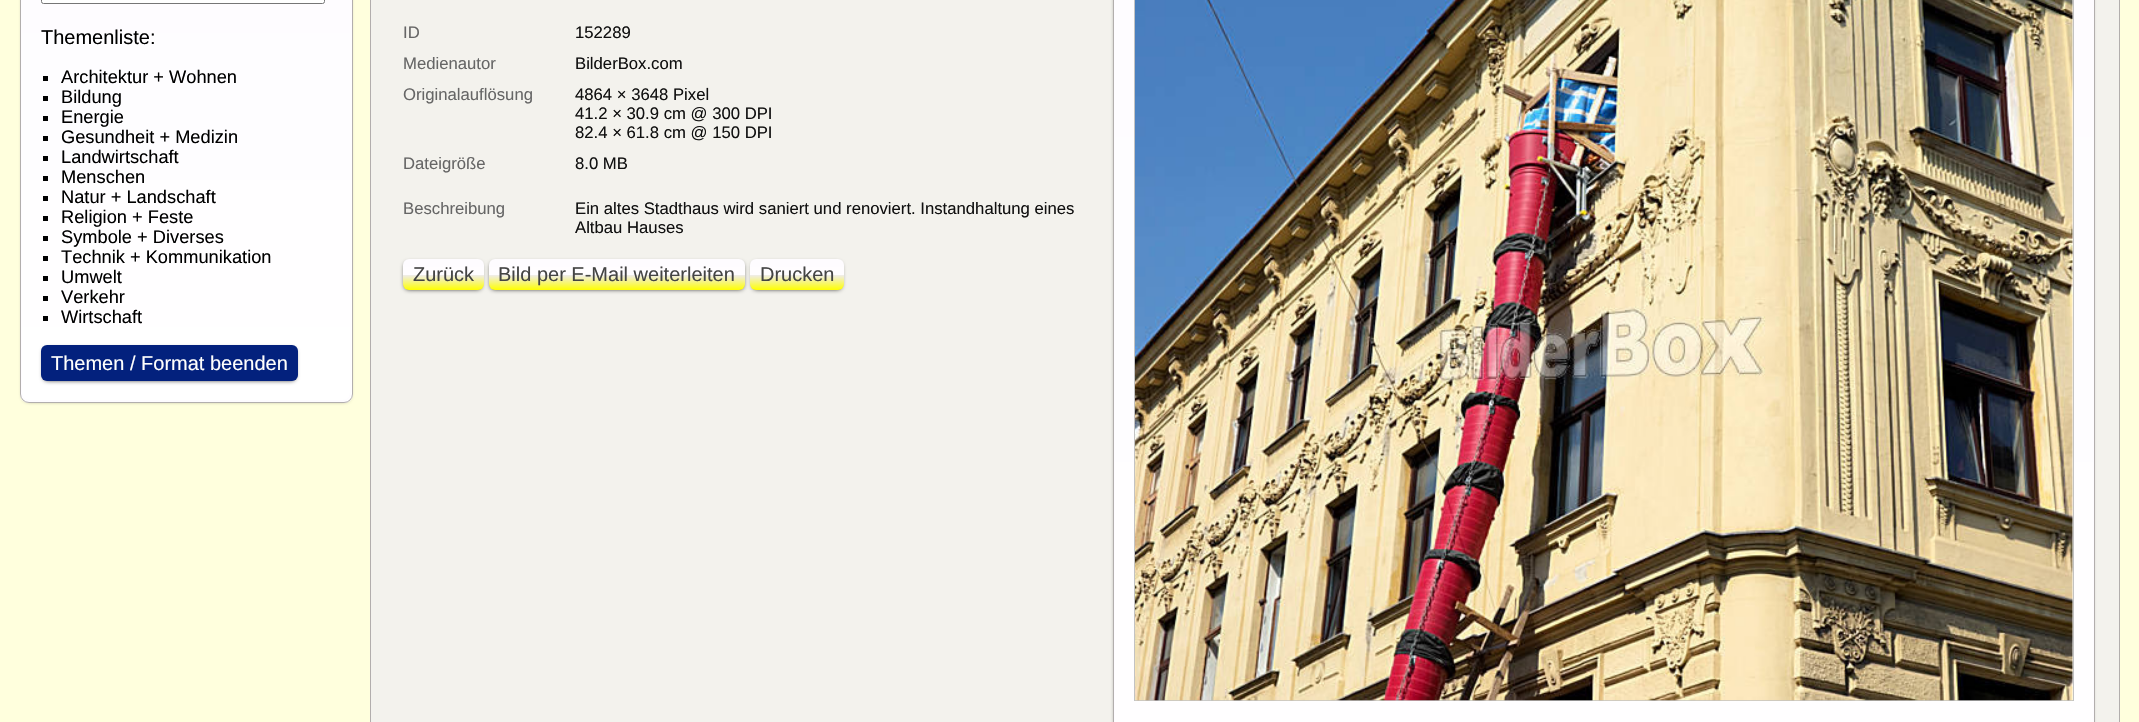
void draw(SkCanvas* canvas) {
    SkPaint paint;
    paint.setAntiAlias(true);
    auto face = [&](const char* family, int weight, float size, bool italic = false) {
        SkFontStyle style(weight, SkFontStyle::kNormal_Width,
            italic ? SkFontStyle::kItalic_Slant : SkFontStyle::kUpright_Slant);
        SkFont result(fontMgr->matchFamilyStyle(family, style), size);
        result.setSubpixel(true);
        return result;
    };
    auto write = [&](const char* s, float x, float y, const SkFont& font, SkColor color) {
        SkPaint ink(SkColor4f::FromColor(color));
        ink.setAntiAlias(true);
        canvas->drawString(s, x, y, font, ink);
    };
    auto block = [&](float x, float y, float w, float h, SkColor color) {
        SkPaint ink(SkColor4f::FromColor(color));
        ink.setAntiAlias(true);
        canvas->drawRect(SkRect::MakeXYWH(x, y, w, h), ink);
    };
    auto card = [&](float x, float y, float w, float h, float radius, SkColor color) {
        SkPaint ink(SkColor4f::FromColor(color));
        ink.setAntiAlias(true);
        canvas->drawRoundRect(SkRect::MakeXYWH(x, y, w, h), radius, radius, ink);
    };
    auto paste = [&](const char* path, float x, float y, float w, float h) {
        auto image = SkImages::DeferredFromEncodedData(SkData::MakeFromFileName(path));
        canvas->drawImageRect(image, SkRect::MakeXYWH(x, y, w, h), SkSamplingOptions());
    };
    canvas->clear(SkColorSetRGB(255, 255, 221));
    paint.setColor(SK_ColorBLACK);
    paint.setMaskFilter(SkMaskFilter::MakeBlur(kNormal_SkBlurStyle, 2.5f));
    canvas->drawRoundRect(SkRect::MakeXYWH(24, -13, 325, 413), 5, 5, paint);
    paint.setMaskFilter(nullptr);
    canvas->save();
    canvas->clipPath(SkPathBuilder().moveTo(29, -41).lineTo(344, -41).cubicTo(349, -41, 353, -37, 353, -32).lineTo(353, 394).cubicTo(353, 399, 349, 403, 344, 403).lineTo(29, 403).cubicTo(24, 403, 20, 399, 20, 394).lineTo(20, -32).cubicTo(20, -37, 24, -41, 29, -41).close().detach(), true);
    {
        const SkColor colors[] = {SkColorSetRGB(254, 252, 255), SK_ColorWHITE};
        const float stops[] = {0, 1};
        const SkPoint ends[] = {{186, -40}, {186, 401}};
        paint.setShader(SkGradientShader::MakeLinear(ends, colors, stops, 2, SkTileMode::kClamp));
        paint.setAlpha(255);
    }
    canvas->drawRect(SkRect::MakeXYWH(20, 0, 333, 401), paint);
    {
        const SkColor colors[] = {SkColorSetRGB(254, 252, 255), SK_ColorWHITE};
        const float stops[] = {0, 1};
        const SkPoint ends[] = {{186, 401}, {186, 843}};
        paint.setShader(SkGradientShader::MakeLinear(ends, colors, stops, 2, SkTileMode::kClamp));
        paint.setAlpha(255);
    }
    canvas->drawRect(SkRect::MakeXYWH(20, 401, 333, 2), paint);
    canvas->restore();
    paint.setStyle(SkPaint::kStroke_Style);
    paint.setStrokeWidth(1);
    paint.setShader(nullptr);
    paint.setColor(SkColorSetRGB(254, 252, 255));
    canvas->drawRoundRect(SkRect::MakeXYWH(21.5f, -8.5f, 329, 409), 7.5f, 7.5f, paint);
    paint.setColor(SkColorSetRGB(178, 174, 173));
    canvas->drawRoundRect(SkRect::MakeXYWH(20.5f, -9.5f, 332, 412), 8.5f, 8.5f, paint);
    paint.setStyle(SkPaint::kFill_Style);
    paint.setColor(SK_ColorWHITE);
    canvas->drawRoundRect(SkRect::MakeXYWH(41.5f, -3.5f, 283, 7), 2, 2, paint);
    paint.setStyle(SkPaint::kStroke_Style);
    paint.setColor(SkColorSetRGB(118, 118, 118));
    canvas->drawRoundRect(SkRect::MakeXYWH(41.5f, -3.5f, 283, 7), 2, 2, paint);
    auto kFont1 = face("Liberation Sans", 400, 20);
    write("Themenliste:", 41, 44, kFont1, SK_ColorBLACK);
    block(43, 76, 5, 5, SK_ColorBLACK);
    auto kFont2 = face("Liberation Sans", 400, 18.25f);
    write("Architektur + Wohnen", 61, 83, kFont2, SK_ColorBLACK);
    block(43, 96, 5, 5, SK_ColorBLACK);
    write("Bildung", 61, 103, kFont2, SK_ColorBLACK);
    block(43, 116, 5, 5, SK_ColorBLACK);
    write("Energie", 61, 123, kFont2, SK_ColorBLACK);
    block(43, 136, 5, 5, SK_ColorBLACK);
    write("Gesundheit + Medizin", 61, 143, kFont2, SK_ColorBLACK);
    block(43, 156, 5, 5, SK_ColorBLACK);
    write("Landwirtschaft", 61, 163, kFont2, SK_ColorBLACK);
    block(43, 176, 5, 5, SK_ColorBLACK);
    write("Menschen", 61, 183, kFont2, SK_ColorBLACK);
    block(43, 196, 5, 5, SK_ColorBLACK);
    write("Natur + Landschaft", 61, 203, kFont2, SK_ColorBLACK);
    block(43, 216, 5, 5, SK_ColorBLACK);
    write("Religion + Feste", 61, 223, kFont2, SK_ColorBLACK);
    block(43, 236, 5, 5, SK_ColorBLACK);
    write("Symbole + Diverses", 61, 243, kFont2, SK_ColorBLACK);
    block(43, 256, 5, 5, SK_ColorBLACK);
    write("Technik + Kommunikation", 61, 263, kFont2, SK_ColorBLACK);
    block(43, 276, 5, 5, SK_ColorBLACK);
    write("Umwelt", 61, 283, kFont2, SK_ColorBLACK);
    block(43, 296, 5, 5, SK_ColorBLACK);
    write("Verkehr", 61, 303, kFont2, SK_ColorBLACK);
    block(43, 316, 5, 5, SK_ColorBLACK);
    write("Wirtschaft", 61, 323, kFont2, SK_ColorBLACK);
    paint.setStyle(SkPaint::kFill_Style);
    paint.setColor(SK_ColorBLACK);
    paint.setMaskFilter(SkMaskFilter::MakeBlur(kNormal_SkBlurStyle, 2.5f));
    canvas->drawRoundRect(SkRect::MakeXYWH(44, 349, 251, 31), 4, 4, paint);
    paint.setMaskFilter(nullptr);
    card(41, 345, 257, 36, 6, SkColorSetRGB(3, 33, 125));
    write("Themen / Format beenden", 51, 370, kFont1, SkColorSetRGB(255, 255, 253));
    paint.setColor(SkColorSetRGB(243, 242, 237));
    canvas->drawRect(SkRect::MakeXYWH(370.5f, -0.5f, 1749, 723), paint);
    paint.setStyle(SkPaint::kStroke_Style);
    paint.setColor(SkColorSetRGB(178, 174, 173));
    canvas->drawRect(SkRect::MakeXYWH(370.5f, -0.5f, 1749, 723), paint);
    auto kFont3 = face("Liberation Sans", 400, 16.7f);
    write("ID", 403, 38, kFont3, SkColorSetRGB(102, 102, 102));
    write("152289", 575, 38, kFont3, SkColorSetRGB(17, 17, 17));
    write("Medienautor", 403, 69, kFont3, SkColorSetRGB(102, 102, 102));
    write("BilderBox.com", 575, 69, kFont3, SkColorSetRGB(17, 17, 17));
    write("Originalauflösung", 403, 100, kFont3, SkColorSetRGB(102, 102, 102));
    write("4864 × 3648 Pixel", 575, 100, kFont3, SkColorSetRGB(17, 17, 17));
    write("41.2 × 30.9 cm @ 300 DPI", 575, 119, kFont3, SkColorSetRGB(17, 17, 17));
    write("82.4 × 61.8 cm @ 150 DPI", 575, 138, kFont3, SkColorSetRGB(17, 17, 17));
    write("Dateigröße", 403, 169, kFont3, SkColorSetRGB(102, 102, 102));
    write("8.0 MB", 575, 169, kFont3, SkColorSetRGB(17, 17, 17));
    write("Beschreibung", 403, 214, kFont3, SkColorSetRGB(102, 102, 102));
    write("Ein altes Stadthaus wird saniert und renoviert. Instandhaltung eines", 575, 214, kFont3, SkColorSetRGB(17, 17, 17));
    write("Altbau Hauses", 575, 233, kFont3, SkColorSetRGB(17, 17, 17));
    paint.setStyle(SkPaint::kFill_Style);
    paint.setColor(SK_ColorBLACK);
    paint.setMaskFilter(SkMaskFilter::MakeBlur(kNormal_SkBlurStyle, 2.5f));
    canvas->drawRoundRect(SkRect::MakeXYWH(405, 263, 76, 26), 4, 4, paint);
    paint.setMaskFilter(nullptr);
    {
        const SkColor colors[] = {SkColorSetRGB(254, 252, 255), SkColorSetRGB(255, 253, 255), SkColorSetRGB(239, 236, 239), SkColorSetRGB(255, 255, 0)};
        const float stops[] = {0, 0.5f, 0.51f, 1};
        const SkPoint ends[] = {{443, 259}, {443, 290}};
        paint.setShader(SkGradientShader::MakeLinear(ends, colors, stops, 4, SkTileMode::kClamp));
        paint.setAlpha(255);
    }
    canvas->drawRoundRect(SkRect::MakeXYWH(403, 259, 81, 31), 6, 6, paint);
    write("Zurück", 413, 281, kFont1, SkColorSetRGB(68, 68, 68));
    paint.setShader(nullptr);
    paint.setColor(SK_ColorBLACK);
    paint.setMaskFilter(SkMaskFilter::MakeBlur(kNormal_SkBlurStyle, 2.5f));
    canvas->drawRoundRect(SkRect::MakeXYWH(491, 263, 252, 26), 4, 4, paint);
    paint.setMaskFilter(nullptr);
    {
        const SkColor colors[] = {SkColorSetRGB(254, 252, 255), SkColorSetRGB(255, 253, 255), SkColorSetRGB(239, 236, 239), SkColorSetRGB(255, 255, 0)};
        const float stops[] = {0, 0.5f, 0.51f, 1};
        const SkPoint ends[] = {{617, 259}, {617, 290}};
        paint.setShader(SkGradientShader::MakeLinear(ends, colors, stops, 4, SkTileMode::kClamp));
        paint.setAlpha(255);
    }
    canvas->drawRoundRect(SkRect::MakeXYWH(489, 259, 256, 31), 6, 6, paint);
    write("Bild per E-Mail weiterleiten", 498, 281, kFont1, SkColorSetRGB(68, 68, 68));
    paint.setShader(nullptr);
    paint.setColor(SK_ColorBLACK);
    paint.setMaskFilter(SkMaskFilter::MakeBlur(kNormal_SkBlurStyle, 2.5f));
    canvas->drawRoundRect(SkRect::MakeXYWH(753, 263, 88, 26), 4, 4, paint);
    paint.setMaskFilter(nullptr);
    {
        const SkColor colors[] = {SkColorSetRGB(254, 252, 255), SkColorSetRGB(255, 253, 255), SkColorSetRGB(239, 236, 239), SkColorSetRGB(255, 255, 0)};
        const float stops[] = {0, 0.5f, 0.51f, 1};
        const SkPoint ends[] = {{797, 259}, {797, 290}};
        paint.setShader(SkGradientShader::MakeLinear(ends, colors, stops, 4, SkTileMode::kClamp));
        paint.setAlpha(255);
    }
    canvas->drawRoundRect(SkRect::MakeXYWH(750, 259, 94, 31), 6, 6, paint);
    write("Drucken", 760, 281, kFont1, SkColorSetRGB(68, 68, 68));
    paint.setShader(nullptr);
    paint.setColor(SK_ColorBLACK);
    paint.setMaskFilter(SkMaskFilter::MakeBlur(kNormal_SkBlurStyle, 2.5f));
    canvas->drawRoundRect(SkRect::MakeXYWH(1116, -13, 975, 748), 5, 5, paint);
    paint.setMaskFilter(nullptr);
    {
        const SkColor colors[] = {SkColorSetRGB(254, 252, 255), SK_ColorWHITE};
        const float stops[] = {0, 1};
        const SkPoint ends[] = {{1604, -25}, {1604, 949}};
        paint.setShader(SkGradientShader::MakeLinear(ends, colors, stops, 2, SkTileMode::kClamp));
        paint.setAlpha(255);
    }
    canvas->drawRect(SkRect::MakeXYWH(1115, 0, 978, 722), paint);
    paint.setStyle(SkPaint::kStroke_Style);
    paint.setShader(nullptr);
    paint.setColor(SkColorSetRGB(254, 252, 255));
    canvas->drawRect(SkRect::MakeXYWH(1114.5f, -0.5f, 979, 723), paint);
    paint.setColor(SkColorSetRGB(178, 174, 173));
    canvas->drawRect(SkRect::MakeXYWH(1113.5f, -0.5f, 981, 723), paint);
    paint.setColor(SkColorSetRGB(195, 195, 195));
    canvas->drawRect(SkRect::MakeXYWH(1134.5f, -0.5f, 939, 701), paint);
    paste("pic1.png", 1135, 0, 938, 701);
}
